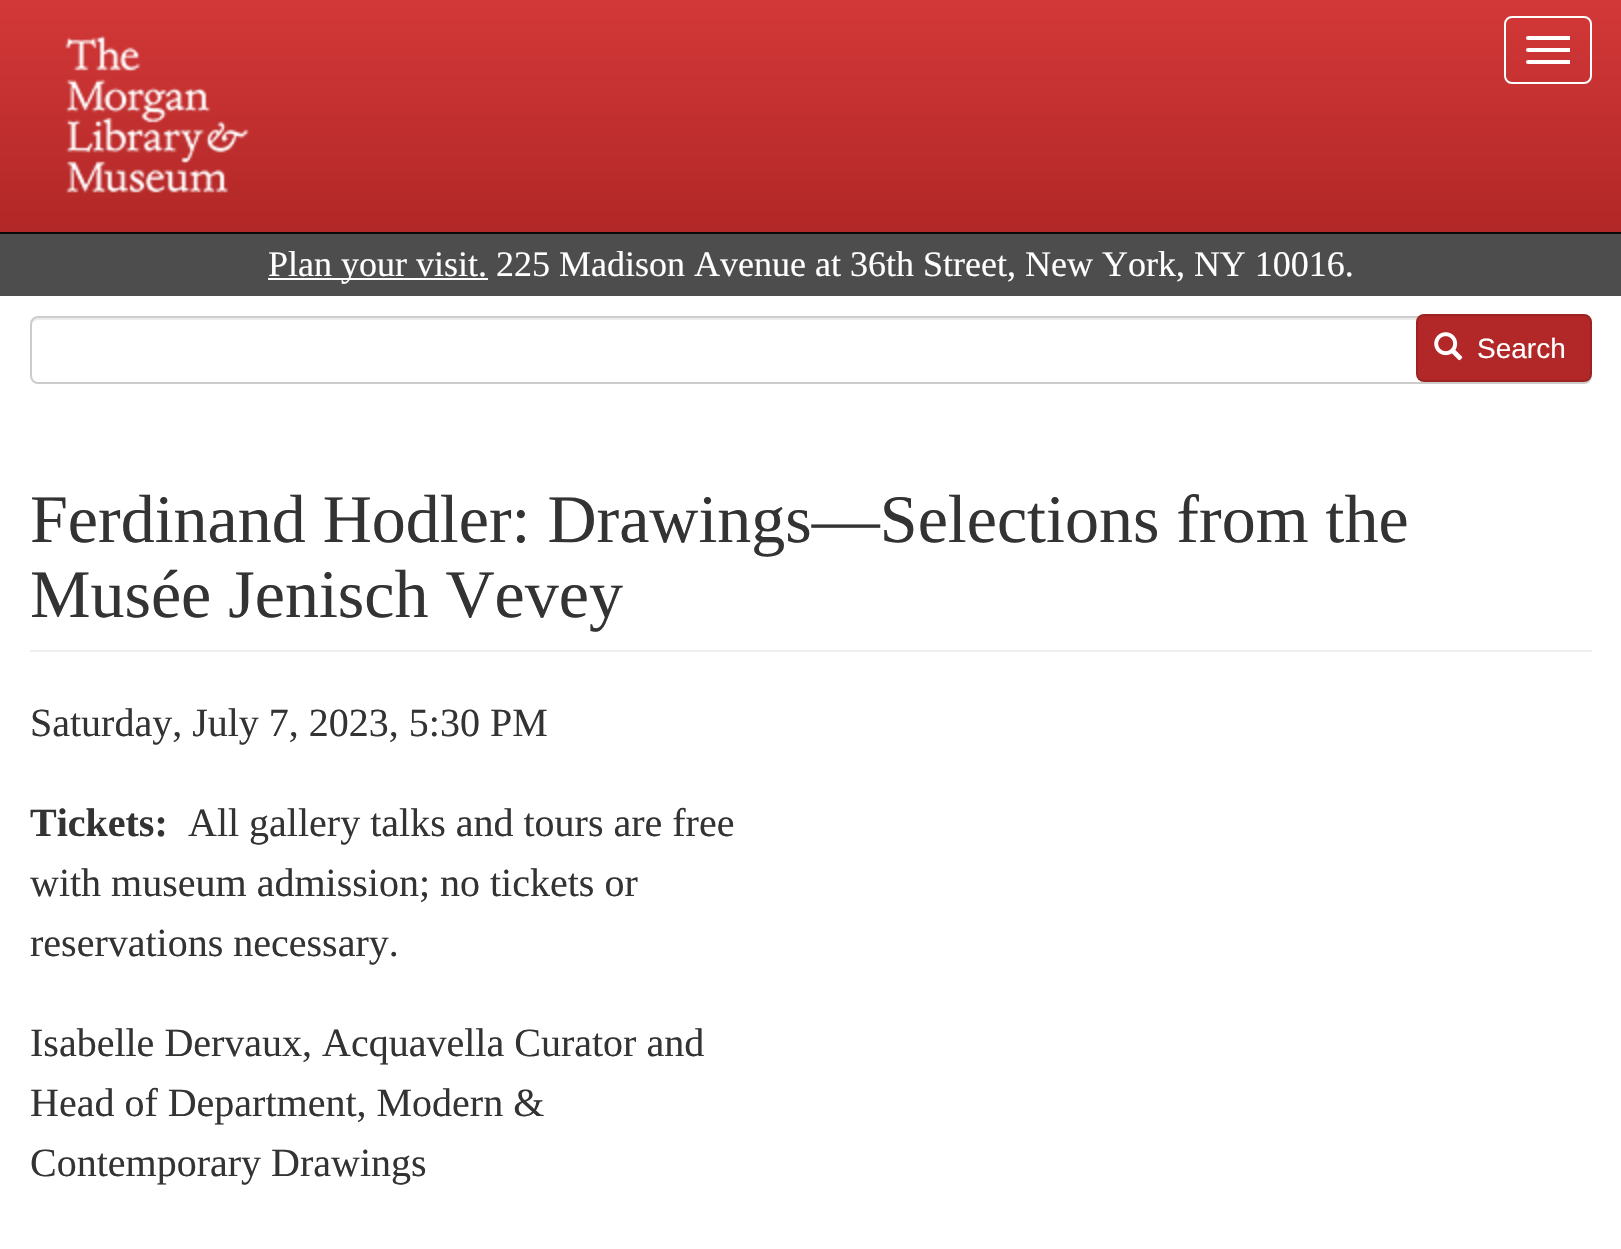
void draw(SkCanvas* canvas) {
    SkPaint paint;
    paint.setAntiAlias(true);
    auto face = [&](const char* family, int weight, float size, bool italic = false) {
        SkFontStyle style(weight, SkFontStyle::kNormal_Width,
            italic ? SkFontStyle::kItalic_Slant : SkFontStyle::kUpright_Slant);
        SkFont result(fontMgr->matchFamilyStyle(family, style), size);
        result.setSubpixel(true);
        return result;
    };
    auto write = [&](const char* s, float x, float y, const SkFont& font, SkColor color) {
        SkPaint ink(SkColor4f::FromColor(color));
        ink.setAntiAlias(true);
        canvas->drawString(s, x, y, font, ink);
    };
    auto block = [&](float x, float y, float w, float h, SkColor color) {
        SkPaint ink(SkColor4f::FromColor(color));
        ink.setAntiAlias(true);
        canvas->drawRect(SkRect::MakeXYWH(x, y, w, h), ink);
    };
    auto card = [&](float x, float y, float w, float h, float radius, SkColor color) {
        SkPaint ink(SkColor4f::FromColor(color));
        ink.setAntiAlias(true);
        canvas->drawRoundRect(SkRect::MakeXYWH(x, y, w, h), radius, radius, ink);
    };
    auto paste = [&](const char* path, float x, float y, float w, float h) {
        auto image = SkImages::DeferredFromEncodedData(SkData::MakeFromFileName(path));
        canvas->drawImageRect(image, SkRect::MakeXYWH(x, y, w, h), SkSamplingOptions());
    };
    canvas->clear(SK_ColorWHITE);
    {
        const SkColor colors[] = {SkColorSetRGB(211, 56, 56), SkColorSetRGB(178, 39, 39)};
        const float stops[] = {0, 1};
        const SkPoint ends[] = {{811, 0}, {811, 232}};
        paint.setShader(SkGradientShader::MakeLinear(ends, colors, stops, 2, SkTileMode::kClamp));
        paint.setAlpha(255);
    }
    canvas->drawRect(SkRect::MakeXYWH(0, 0, 1621, 232), paint);
    block(0, 232, 1621, 2, SkColorSetRGB(9, 9, 9));
    paste("pic1.png", 65, 35, 184, 158);
    paint.setStyle(SkPaint::kStroke_Style);
    paint.setStrokeWidth(2);
    paint.setShader(nullptr);
    paint.setColor(SK_ColorWHITE);
    canvas->drawRoundRect(SkRect::MakeXYWH(1505, 17, 86, 66), 7, 7, paint);
    card(1526, 36, 44, 4, 2, SK_ColorWHITE);
    block(1568, 36, 2, 4, SK_ColorWHITE);
    card(1526, 48, 44, 4, 2, SK_ColorWHITE);
    block(1568, 48, 2, 4, SK_ColorWHITE);
    card(1526, 60, 44, 4, 2, SK_ColorWHITE);
    block(1568, 60, 2, 4, SK_ColorWHITE);
    block(0, 234, 1621, 62, SkColorSetRGB(77, 77, 77));
    block(268, 278, 220, 2, SK_ColorWHITE);
    auto kFont1 = face("Liberation Serif", 400, 36);
    write("Plan your visit. 225 Madison Avenue at 36th Street, New York, NY 10016.", 268, 276, kFont1, SK_ColorWHITE);
    paint.setStyle(SkPaint::kFill_Style);
    paint.setColor(SkColorSetRGB(236, 236, 236));
    canvas->drawPath(SkPathBuilder().moveTo(38, 320).lineTo(1584, 320).cubicTo(1587, 320, 1590, 323, 1590, 326).cubicTo(1590, 322, 1589, 318, 1584, 318).lineTo(38, 318).cubicTo(33, 318, 32, 322, 32, 326).cubicTo(32, 323, 35, 320, 38, 320).close().detach(), paint);
    paint.setStyle(SkPaint::kStroke_Style);
    paint.setColor(SkColorSetRGB(204, 204, 204));
    canvas->drawRoundRect(SkRect::MakeXYWH(31, 317, 1560, 66), 7, 7, paint);
    paint.setStyle(SkPaint::kFill_Style);
    paint.setColor(SkColorSetRGB(178, 39, 39));
    canvas->drawRoundRect(SkRect::MakeXYWH(1417, 315, 174, 66), 7, 7, paint);
    paint.setStyle(SkPaint::kStroke_Style);
    paint.setColor(SkColorSetRGB(157, 34, 34));
    canvas->drawRoundRect(SkRect::MakeXYWH(1417, 315, 174, 66), 7, 7, paint);
    paste("pic2.png", 1434, 332, 29, 29);
    auto kFont2 = face("Liberation Sans", 400, 28);
    write("Search", 1477, 358, kFont2, SK_ColorWHITE);
    block(30, 650, 1562, 2, SkColorSetRGB(238, 238, 238));
    auto kFont3 = face("Liberation Serif", 400, 68);
    write("Ferdinand Hodler: Drawings—Selections from the", 30, 542, kFont3, SkColorSetRGB(51, 51, 51));
    write("Musée Jenisch Vevey", 30, 617, kFont3, SkColorSetRGB(51, 51, 51));
    auto kFont4 = face("Liberation Serif", 400, 40);
    write("Saturday, July 7, 2023, 5:30 PM", 30, 736, kFont4, SkColorSetRGB(51, 51, 51));
    write("All gallery talks and tours are free", 188, 836, kFont4, SkColorSetRGB(51, 51, 51));
    write("with museum admission; no tickets or", 30, 896, kFont4, SkColorSetRGB(51, 51, 51));
    write("reservations necessary.", 30, 956, kFont4, SkColorSetRGB(51, 51, 51));
    auto kFont5 = face("Liberation Serif", 700, 40);
    write("Tickets:", 30, 836, kFont5, SkColorSetRGB(51, 51, 51));
    write("Isabelle Dervaux, Acquavella Curator and", 30, 1056, kFont4, SkColorSetRGB(51, 51, 51));
    write("Head of Department, Modern &", 30, 1116, kFont4, SkColorSetRGB(51, 51, 51));
    write("Contemporary Drawings", 30, 1176, kFont4, SkColorSetRGB(51, 51, 51));
}
